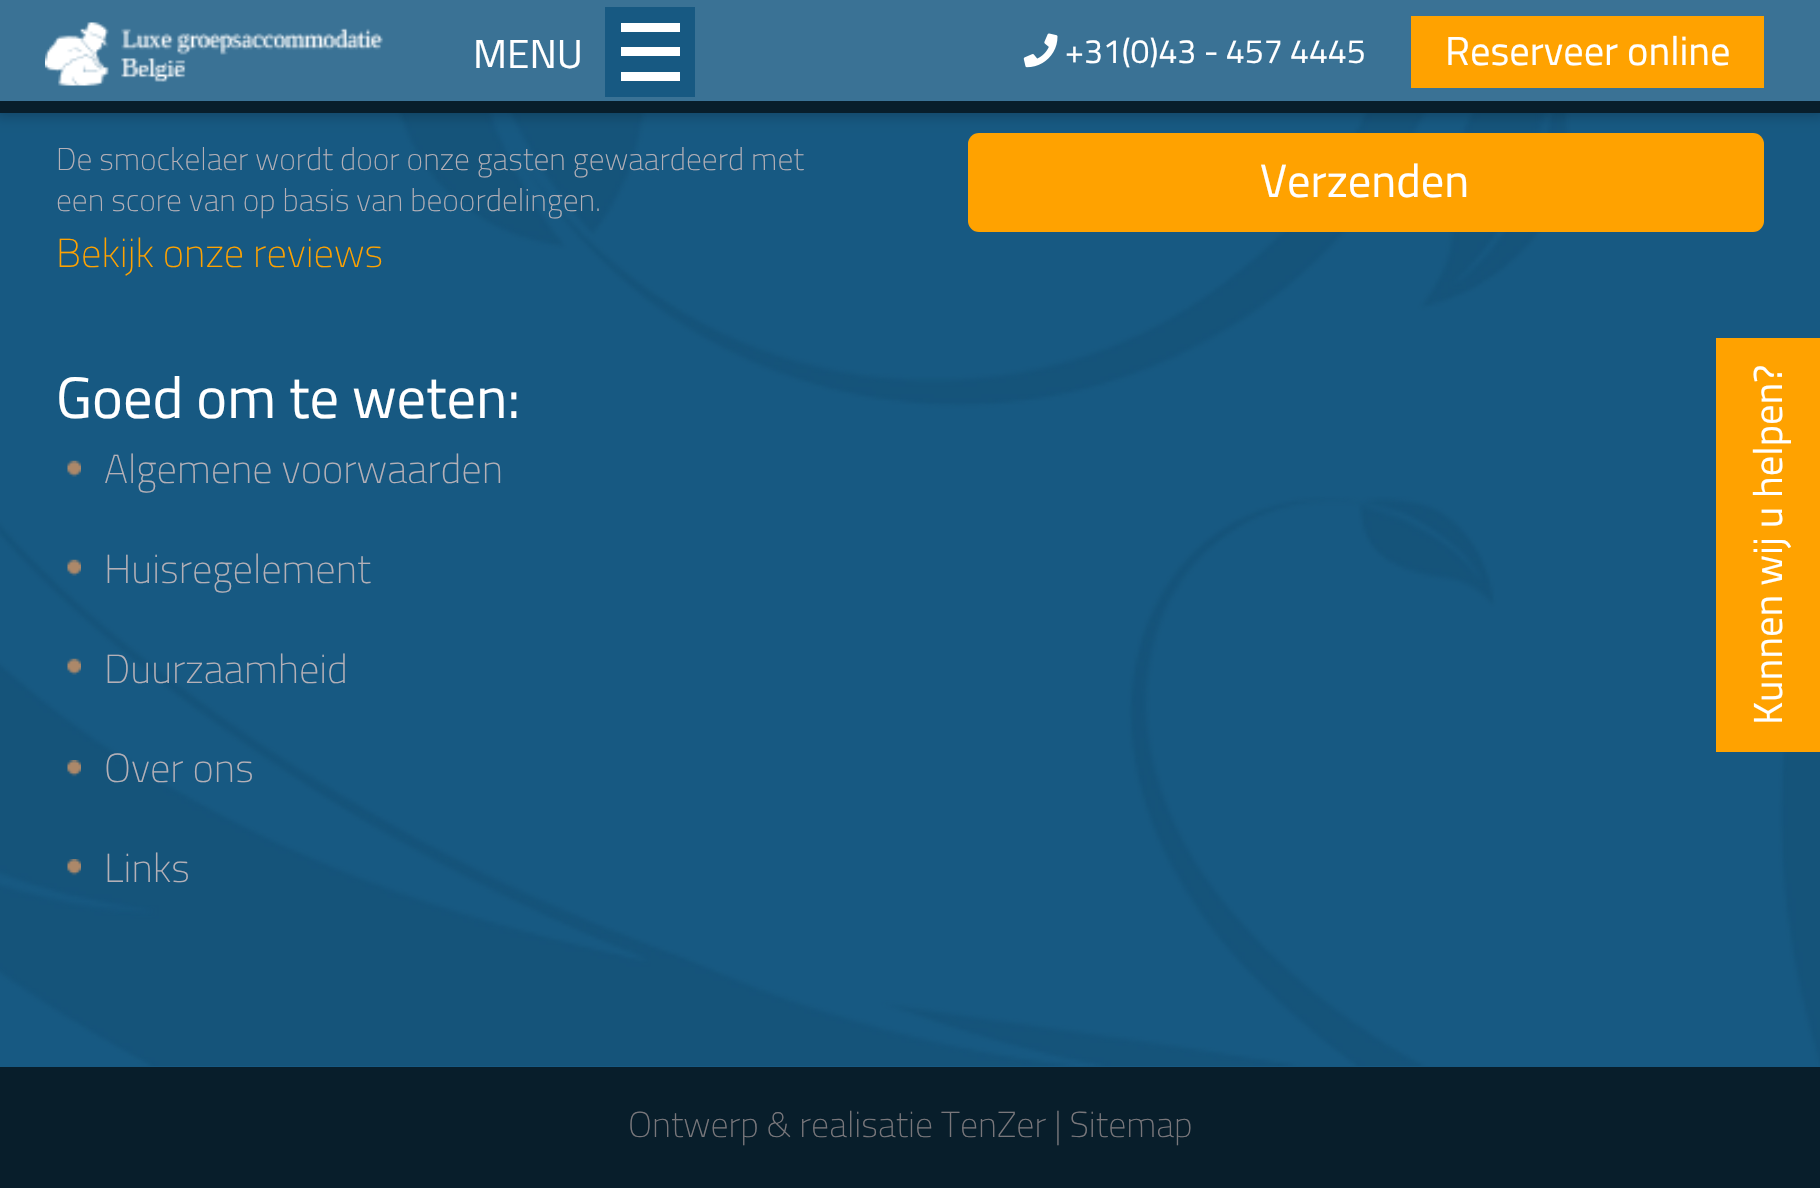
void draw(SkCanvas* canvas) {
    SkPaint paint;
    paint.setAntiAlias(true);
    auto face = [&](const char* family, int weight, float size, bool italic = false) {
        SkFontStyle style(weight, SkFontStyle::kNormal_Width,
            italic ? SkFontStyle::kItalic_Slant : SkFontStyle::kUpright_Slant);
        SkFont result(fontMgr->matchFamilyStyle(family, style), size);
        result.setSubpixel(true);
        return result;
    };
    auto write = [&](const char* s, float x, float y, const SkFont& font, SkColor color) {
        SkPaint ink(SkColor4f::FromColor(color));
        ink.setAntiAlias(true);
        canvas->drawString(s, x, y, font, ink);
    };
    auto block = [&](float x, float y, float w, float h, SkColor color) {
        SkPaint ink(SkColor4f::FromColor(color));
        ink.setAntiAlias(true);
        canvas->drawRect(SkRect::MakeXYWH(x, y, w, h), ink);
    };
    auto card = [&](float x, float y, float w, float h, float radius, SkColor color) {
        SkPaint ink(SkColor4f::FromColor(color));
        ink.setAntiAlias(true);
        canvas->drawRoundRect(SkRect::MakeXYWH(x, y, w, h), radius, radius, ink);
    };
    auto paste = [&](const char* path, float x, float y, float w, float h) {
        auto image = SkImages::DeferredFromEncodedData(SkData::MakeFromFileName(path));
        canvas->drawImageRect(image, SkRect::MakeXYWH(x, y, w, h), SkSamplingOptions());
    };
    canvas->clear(SkColorSetRGB(23, 89, 130));
    paste("pic3.png", 0, 113, 1820, 953);
    card(968, 133, 796, 99, 11, SkColorSetRGB(255, 162, 0));
    paint.setColor(SkColorSetARGB(51, 0, 0, 0));
    paint.setMaskFilter(SkMaskFilter::MakeBlur(kNormal_SkBlurStyle, 5.5f));
    canvas->drawRect(SkRect::MakeXYWH(-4, -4, 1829, 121), paint);
    paint.setMaskFilter(nullptr);
    block(0, 0, 1820, 101, SkColorSetRGB(58, 114, 149));
    paste("pic1.png", 45, 22, 339, 64);
    block(0, 101, 1820, 12, SkColorSetRGB(8, 30, 43));
    auto kFont1 = face("Titillium Web", 400, 40.5f);
    write("MENU", 473, 68, kFont1, SK_ColorWHITE);
    block(605, 7, 90, 90, SkColorSetRGB(23, 89, 130));
    block(621, 23, 59, 9, SK_ColorWHITE);
    block(621, 47, 59, 9, SK_ColorWHITE);
    block(621, 72, 59, 9, SK_ColorWHITE);
    paste("pic2.png", 1023, 33, 35, 35);
    auto kFont2 = face("Titillium Web", 400, 33.75f);
    write("+31(0)43 - 457 4445", 1065, 63, kFont2, SK_ColorWHITE);
    block(1411, 16, 353, 72, SkColorSetRGB(255, 162, 0));
    write("Reserveer online", 1445, 65, kFont1, SK_ColorWHITE);
    auto kFont3 = face("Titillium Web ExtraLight", 200, 31.5f);
    write("De smockelaer wordt door onze gasten gewaardeerd met", 56, 170, kFont3, SkColorSetRGB(180, 176, 183));
    write("een score van op basis van beoordelingen.", 56, 211, kFont3, SkColorSetRGB(180, 176, 183));
    auto kFont4 = face("Titillium Web ExtraLight", 200, 40.5f);
    write("Bekijk onze reviews", 56, 267, kFont4, SkColorSetRGB(255, 162, 0));
    auto kFont5 = face("Titillium Web", 400, 46.5f);
    write("Verzenden", 1260, 197, kFont5, SK_ColorWHITE);
    auto kFont6 = face("Titillium Web", 400, 58.5f);
    write("Goed om te weten:", 56, 418, kFont6, SK_ColorWHITE);
    paste("pic4.png", 67, 460, 14, 17);
    write("Algemene voorwaarden", 104, 483, kFont4, SkColorSetRGB(180, 176, 183));
    paste("pic4.png", 67, 559, 14, 17);
    write("Huisregelement", 104, 583, kFont4, SkColorSetRGB(180, 176, 183));
    paste("pic4.png", 67, 658, 14, 17);
    write("Duurzaamheid", 104, 683, kFont4, SkColorSetRGB(180, 176, 183));
    paste("pic5.png", 67, 760, 14, 17);
    write("Over ons", 104, 782, kFont4, SkColorSetRGB(180, 176, 183));
    paste("pic5.png", 67, 859, 14, 17);
    write("Links", 104, 882, kFont4, SkColorSetRGB(180, 176, 183));
    block(1716, 338, 104, 414, SkColorSetRGB(255, 162, 0));
    canvas->save();
    canvas->rotate(-90, 1782, 725);
    write("Kunnen wij u helpen?", 1782, 725, kFont1, SK_ColorWHITE);
    canvas->restore();
    block(0, 1067, 1820, 121, SkColorSetRGB(8, 30, 43));
    auto kFont7 = face("Titillium Web ExtraLight", 200, 36);
    write("Ontwerp & realisatie TenZer | Sitemap", 628, 1137, kFont7, SkColorSetRGB(121, 119, 123));
}
